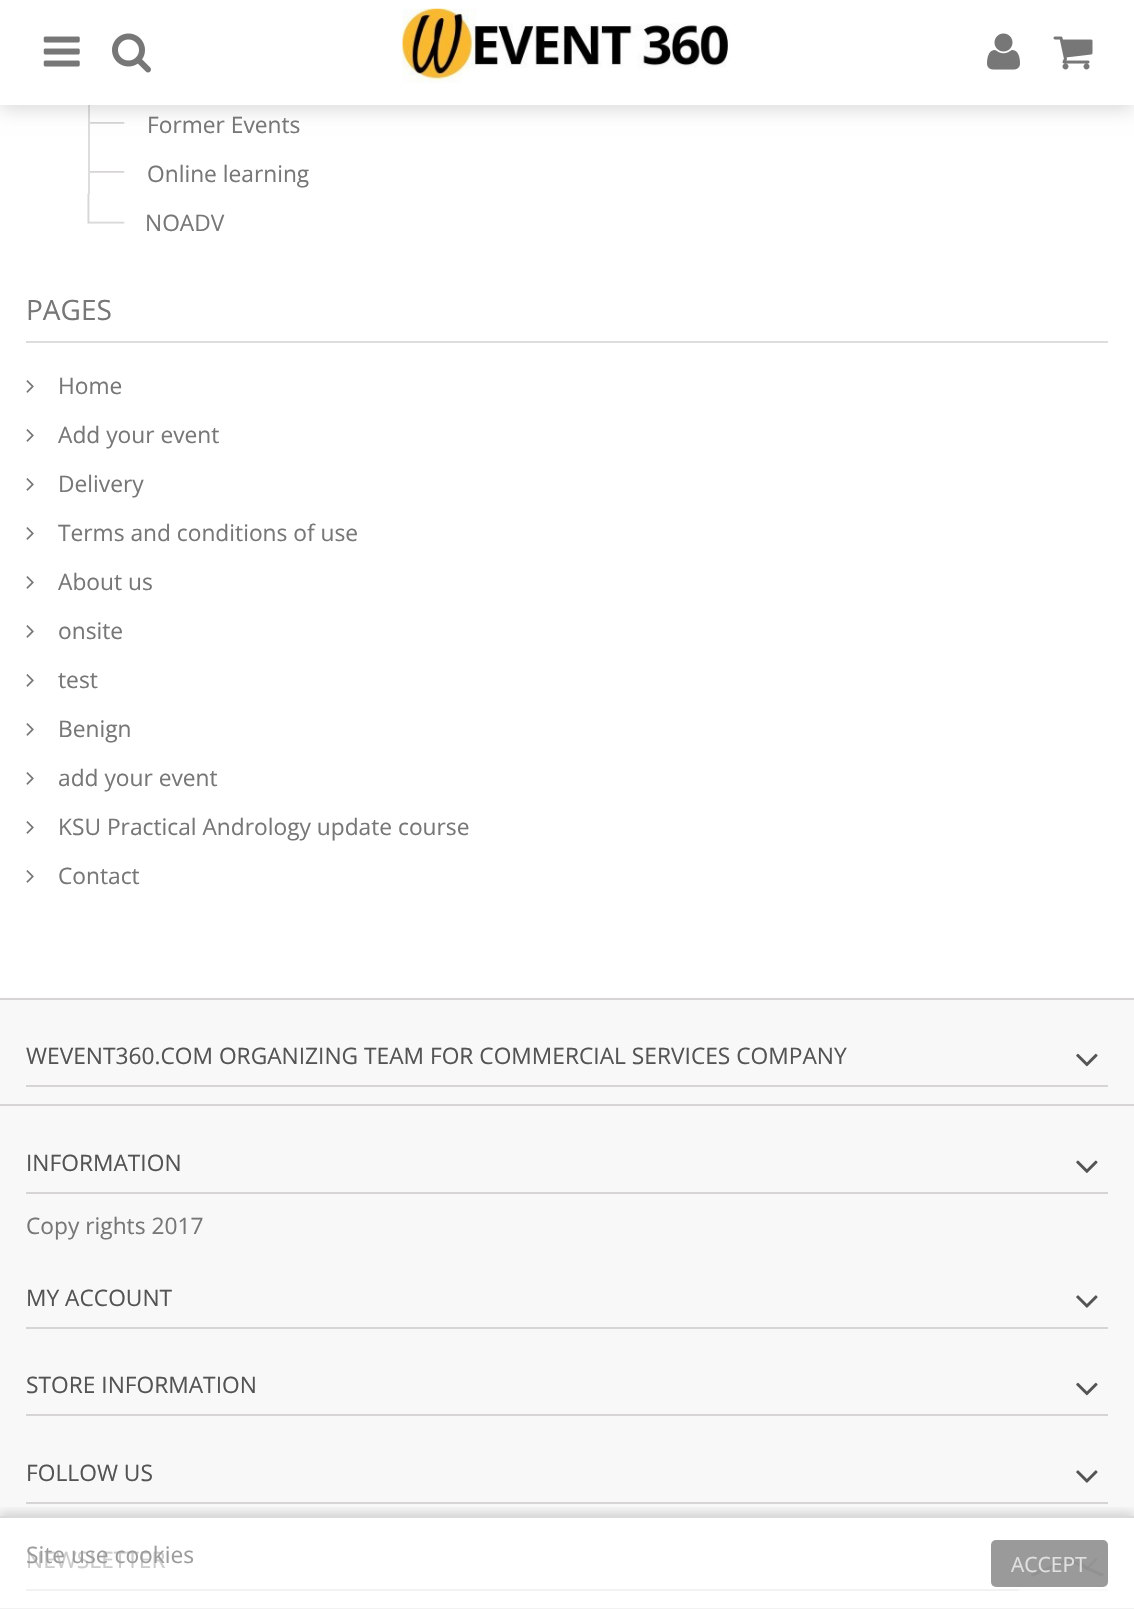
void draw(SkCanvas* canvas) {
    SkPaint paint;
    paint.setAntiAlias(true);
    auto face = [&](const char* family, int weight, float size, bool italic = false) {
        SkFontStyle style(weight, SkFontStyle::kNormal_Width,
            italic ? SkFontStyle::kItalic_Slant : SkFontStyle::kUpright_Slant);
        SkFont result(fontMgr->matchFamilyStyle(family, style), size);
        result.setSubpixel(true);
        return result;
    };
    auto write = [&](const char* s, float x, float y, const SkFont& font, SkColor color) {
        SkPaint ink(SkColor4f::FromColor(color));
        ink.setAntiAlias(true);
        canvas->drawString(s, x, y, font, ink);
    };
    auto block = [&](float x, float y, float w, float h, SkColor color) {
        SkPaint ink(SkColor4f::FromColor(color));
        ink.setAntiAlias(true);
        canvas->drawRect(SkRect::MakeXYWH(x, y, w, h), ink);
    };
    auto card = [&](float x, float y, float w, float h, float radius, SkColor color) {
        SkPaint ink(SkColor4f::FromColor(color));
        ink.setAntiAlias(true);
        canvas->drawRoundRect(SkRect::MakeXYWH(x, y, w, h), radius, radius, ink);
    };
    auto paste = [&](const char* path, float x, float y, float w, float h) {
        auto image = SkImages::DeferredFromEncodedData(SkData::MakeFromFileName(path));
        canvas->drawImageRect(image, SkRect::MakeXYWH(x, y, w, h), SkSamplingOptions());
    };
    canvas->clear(SK_ColorWHITE);
    paste("pic6.png", 90, 122, 35, 2);
    block(88, 105, 2, 89, SkColorSetRGB(221, 221, 221));
    paint.setColor(SkColorSetARGB(38, 0, 0, 0));
    paint.setMaskFilter(SkMaskFilter::MakeBlur(kNormal_SkBlurStyle, 9));
    canvas->drawRect(SkRect::MakeXYWH(0, 4, 1134, 105), paint);
    paint.setMaskFilter(nullptr);
    block(0, 0, 1134, 105, SK_ColorWHITE);
    paste("pic1.png", 43, 36, 37, 31);
    paste("pic2.png", 112, 33, 39, 40);
    paste("pic3.png", 401, 8, 329, 75);
    paste("pic4.png", 987, 33, 33, 37);
    paste("pic5.png", 1053, 36, 40, 34);
    auto kFont1 = face("Open Sans", 400, 22.75f);
    write("Former Events", 147, 133, kFont1, SkColorSetRGB(119, 119, 119));
    paste("pic6.png", 90, 171, 35, 2);
    write("Online learning", 147, 182, kFont1, SkColorSetRGB(119, 119, 119));
    paste("pic7.png", 87, 193, 38, 31);
    write("NOADV", 145, 231, kFont1, SkColorSetRGB(119, 119, 119));
    block(26, 341, 1082, 2, SkColorSetRGB(221, 221, 221));
    auto kFont2 = face("Open Sans", 400, 28);
    write("PAGES", 26, 320, kFont2, SkColorSetRGB(119, 119, 119));
    paste("pic8.png", 26, 380, 8, 13);
    write("Home", 58, 394, kFont1, SkColorSetRGB(119, 119, 119));
    paste("pic8.png", 26, 429, 8, 13);
    write("Add your event", 58, 443, kFont1, SkColorSetRGB(119, 119, 119));
    paste("pic8.png", 26, 478, 8, 13);
    write("Delivery", 58, 492, kFont1, SkColorSetRGB(119, 119, 119));
    paste("pic8.png", 26, 527, 8, 13);
    write("Terms and conditions of use", 58, 541, kFont1, SkColorSetRGB(119, 119, 119));
    paste("pic8.png", 26, 576, 8, 13);
    write("About us", 58, 590, kFont1, SkColorSetRGB(119, 119, 119));
    paste("pic8.png", 26, 625, 8, 13);
    write("onsite", 58, 639, kFont1, SkColorSetRGB(119, 119, 119));
    paste("pic8.png", 26, 674, 8, 13);
    write("test", 58, 688, kFont1, SkColorSetRGB(119, 119, 119));
    paste("pic8.png", 26, 723, 8, 13);
    write("Benign", 58, 737, kFont1, SkColorSetRGB(119, 119, 119));
    paste("pic8.png", 26, 772, 8, 13);
    write("add your event", 58, 786, kFont1, SkColorSetRGB(119, 119, 119));
    paste("pic8.png", 26, 821, 8, 13);
    write("KSU Practical Andrology update course", 58, 835, kFont1, SkColorSetRGB(119, 119, 119));
    paste("pic8.png", 26, 870, 8, 13);
    write("Contact", 58, 884, kFont1, SkColorSetRGB(119, 119, 119));
    block(0, 1000, 1134, 104, SkColorSetRGB(248, 248, 248));
    block(0, 998, 1134, 2, SkColorSetRGB(214, 212, 212));
    block(26, 1085, 1082, 2, SkColorSetRGB(214, 212, 212));
    write("WEVENT360.COM ORGANIZING TEAM FOR COMMERCIAL SERVICES COMPANY", 26, 1064, kFont1, SkColorSetRGB(85, 84, 84));
    paste("pic9.png", 1076, 1053, 22, 14);
    block(0, 1106, 1134, 410, SkColorSetRGB(248, 248, 248));
    block(0, 1104, 1134, 2, SkColorSetRGB(214, 212, 212));
    block(0, 1608, 1134, 1, SkColorSetRGB(243, 242, 242));
    block(26, 1192, 1082, 2, SkColorSetRGB(214, 212, 212));
    write("INFORMATION", 26, 1171, kFont1, SkColorSetRGB(85, 84, 84));
    paste("pic10.png", 1076, 1160, 22, 13);
    write("Copy rights 2017", 26, 1234, kFont1, SkColorSetRGB(119, 119, 119));
    block(26, 1327, 1082, 2, SkColorSetRGB(214, 212, 212));
    write("MY ACCOUNT", 26, 1306, kFont1, SkColorSetRGB(85, 84, 84));
    paste("pic11.png", 1076, 1295, 22, 13);
    block(26, 1414, 1082, 2, SkColorSetRGB(214, 212, 212));
    write("STORE INFORMATION", 26, 1393, kFont1, SkColorSetRGB(85, 84, 84));
    paste("pic9.png", 1076, 1382, 22, 14);
    block(26, 1502, 1082, 2, SkColorSetRGB(214, 212, 212));
    write("FOLLOW US", 26, 1481, kFont1, SkColorSetRGB(85, 84, 84));
    paste("pic11.png", 1076, 1470, 22, 13);
    block(26, 1589, 993, 2, SkColorSetRGB(243, 242, 242));
    block(1019, 1589, 89, 2, SkColorSetRGB(250, 250, 250));
    write("NEWSLETTER", 26, 1568, kFont1, SkColorSetRGB(204, 204, 204));
    paste("pic12.png", 1076, 1557, 22, 14);
    paint.setColor(SkColorSetARGB(153, 209, 209, 209));
    canvas->drawPath(SkPathBuilder().moveTo(1068, 1561).lineTo(1102, 1577).lineTo(1104, 1574).lineTo(1068, 1558).close().moveTo(1031, 1574).lineTo(1032, 1577).lineTo(1068, 1561).lineTo(1068, 1558).close().detach(), paint);
    canvas->save();
    canvas->clipRect(SkRect::MakeXYWH(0, 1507, 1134, 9));
    paint.setColor(SkColorSetARGB(36, 0, 0, 0));
    paint.setMaskFilter(SkMaskFilter::MakeBlur(kNormal_SkBlurStyle, 4.5f));
    canvas->drawRect(SkRect::MakeXYWH(0, 1512, 1134, 95), paint);
    paint.setMaskFilter(nullptr);
    canvas->restore();
    block(0, 1516, 1134, 2, SkColorSetRGB(219, 219, 219));
    write("Site use cookies", 26, 1563, kFont1, SkColorSetRGB(156, 156, 156));
    card(991, 1540, 117, 47, 5, SkColorSetARGB(179, 111, 111, 111));
    auto kFont3 = face("Open Sans", 400, 21);
    write("ACCEPT", 1011, 1572, kFont3, SkColorSetRGB(224, 224, 224));
}
